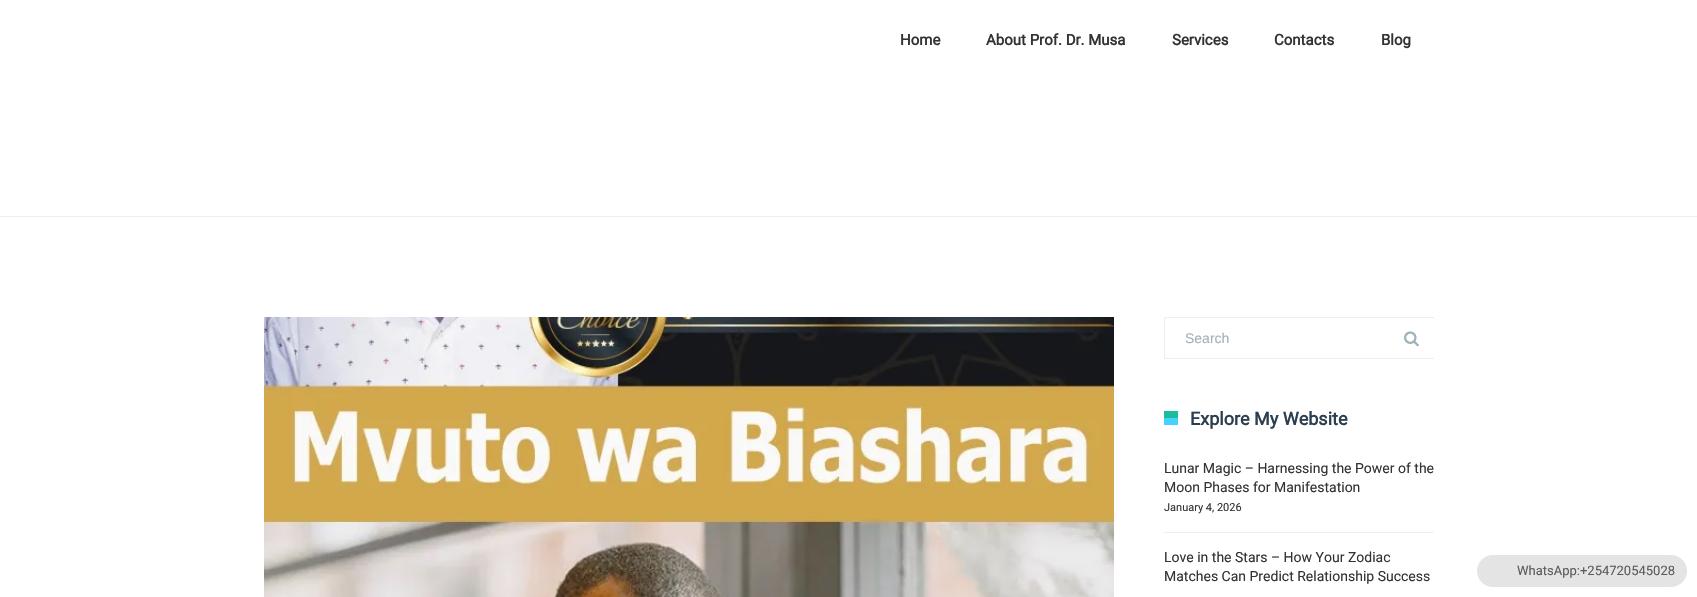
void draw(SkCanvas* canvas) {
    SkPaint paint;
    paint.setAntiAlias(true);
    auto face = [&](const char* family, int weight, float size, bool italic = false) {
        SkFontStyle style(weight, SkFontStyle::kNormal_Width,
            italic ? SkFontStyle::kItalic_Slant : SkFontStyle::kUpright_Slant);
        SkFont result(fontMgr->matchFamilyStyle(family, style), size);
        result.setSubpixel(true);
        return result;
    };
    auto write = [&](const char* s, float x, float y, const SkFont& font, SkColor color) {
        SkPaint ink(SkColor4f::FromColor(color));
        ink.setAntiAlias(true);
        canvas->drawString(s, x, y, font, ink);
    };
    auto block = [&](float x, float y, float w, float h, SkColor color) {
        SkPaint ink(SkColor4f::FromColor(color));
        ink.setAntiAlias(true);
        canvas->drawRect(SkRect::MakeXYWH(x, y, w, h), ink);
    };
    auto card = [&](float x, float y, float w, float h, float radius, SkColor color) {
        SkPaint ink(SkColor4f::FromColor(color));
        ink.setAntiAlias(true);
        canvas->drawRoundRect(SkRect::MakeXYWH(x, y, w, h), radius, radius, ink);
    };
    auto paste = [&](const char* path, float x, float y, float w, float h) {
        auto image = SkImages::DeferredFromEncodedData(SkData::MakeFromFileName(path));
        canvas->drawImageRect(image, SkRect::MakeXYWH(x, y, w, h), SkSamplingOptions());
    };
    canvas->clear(SK_ColorWHITE);
    auto kFont1 = face("Roboto", 700, 15);
    write("Home", 900, 45, kFont1, SkColorSetRGB(51, 51, 51));
    write("About Prof. Dr. Musa", 986, 45, kFont1, SkColorSetRGB(51, 51, 51));
    write("Services", 1172, 45, kFont1, SkColorSetRGB(51, 51, 51));
    write("Contacts", 1274, 45, kFont1, SkColorSetRGB(51, 51, 51));
    write("Blog", 1381, 45, kFont1, SkColorSetRGB(51, 51, 51));
    block(0, 216, 1697, 1, SkColorSetRGB(236, 240, 241));
    paste("pic1.png", 264, 317, 850, 280);
    canvas->save();
    canvas->clipRect(SkRect::MakeXYWH(1164, 317, 270, 42));
    paint.setStyle(SkPaint::kStroke_Style);
    paint.setStrokeWidth(1);
    paint.setColor(SkColorSetRGB(236, 238, 240));
    canvas->drawRect(SkRect::MakeXYWH(1164.5f, 317.5f, 311, 41), paint);
    canvas->restore();
    auto kFont2 = face("Liberation Sans", 400, 14);
    write("Search", 1185, 343, kFont2, SkColorSetRGB(161, 177, 188));
    paste("pic2.png", 1404, 331, 15, 16);
    block(1164, 411, 14, 7, SkColorSetRGB(26, 188, 156));
    block(1164, 418, 14, 7, SkColorSetRGB(70, 209, 255));
    auto kFont3 = face("Roboto", 700, 18);
    write("Explore My Website", 1190, 425, kFont3, SkColorSetRGB(44, 62, 80));
    block(1164, 532, 270, 1, SkColorSetRGB(236, 240, 241));
    auto kFont4 = face("Roboto", 400, 14);
    write("Lunar Magic – Harnessing the Power of the", 1164, 473, kFont4, SkColorSetRGB(51, 51, 51));
    write("Moon Phases for Manifestation", 1164, 492, kFont4, SkColorSetRGB(51, 51, 51));
    auto kFont5 = face("Roboto", 400, 11);
    write("January 4, 2026", 1164, 511, kFont5, SkColorSetRGB(51, 51, 51));
    write("Love in the Stars – How Your Zodiac", 1164, 562, kFont4, SkColorSetRGB(51, 51, 51));
    write("Matches Can Predict Relationship Success", 1164, 581, kFont4, SkColorSetRGB(51, 51, 51));
    card(1477, 555, 210, 32, 16, SkColorSetRGB(228, 228, 228));
    auto kFont6 = face("Roboto", 400, 13);
    write("WhatsApp:+254720545028", 1517, 575, kFont6, SkColorSetRGB(91, 91, 91));
}
